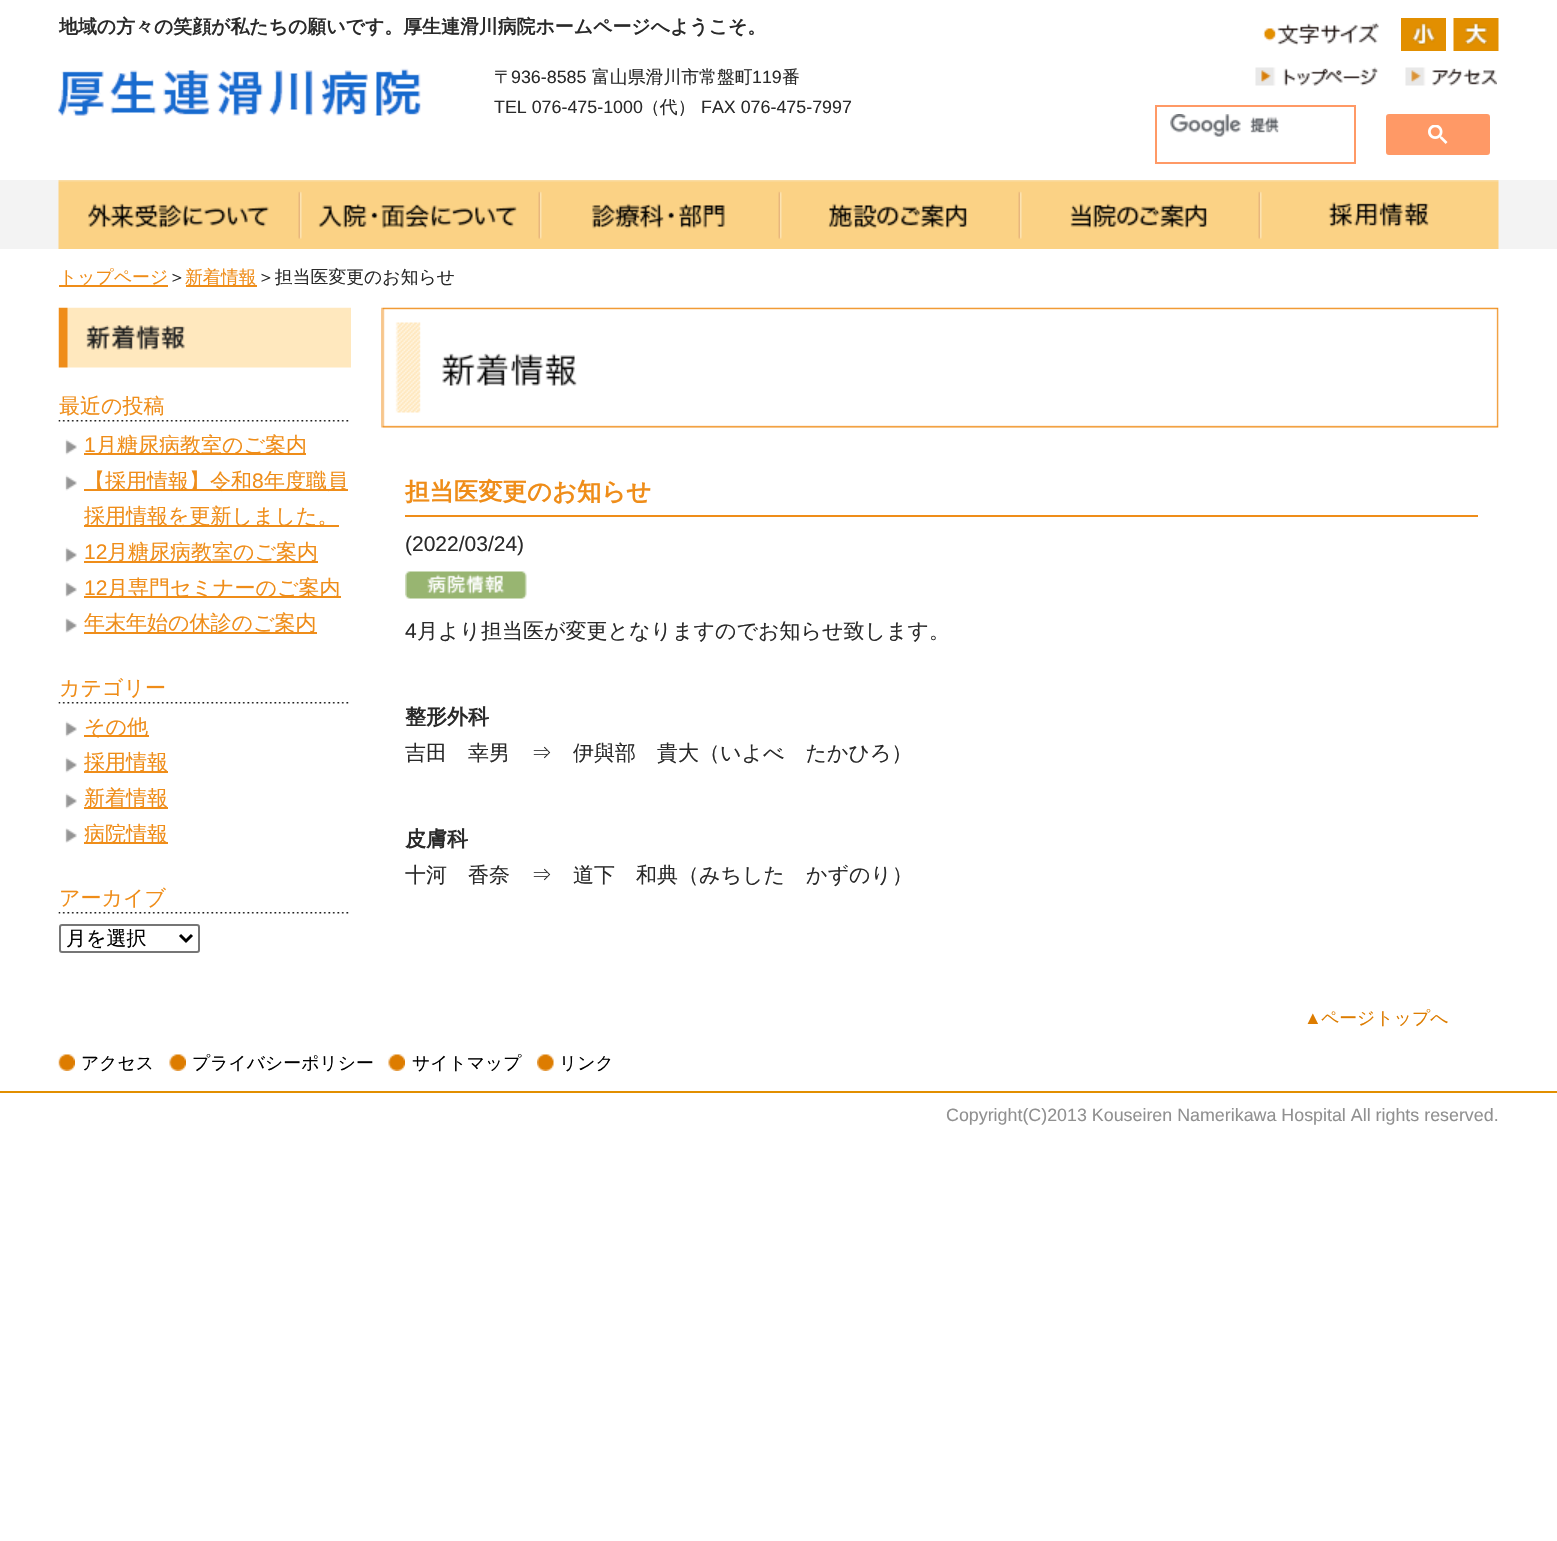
void draw(SkCanvas* canvas) {
    SkPaint paint;
    paint.setAntiAlias(true);
    auto face = [&](const char* family, int weight, float size, bool italic = false) {
        SkFontStyle style(weight, SkFontStyle::kNormal_Width,
            italic ? SkFontStyle::kItalic_Slant : SkFontStyle::kUpright_Slant);
        SkFont result(fontMgr->matchFamilyStyle(family, style), size);
        result.setSubpixel(true);
        return result;
    };
    auto write = [&](const char* s, float x, float y, const SkFont& font, SkColor color) {
        SkPaint ink(SkColor4f::FromColor(color));
        ink.setAntiAlias(true);
        canvas->drawString(s, x, y, font, ink);
    };
    auto block = [&](float x, float y, float w, float h, SkColor color) {
        SkPaint ink(SkColor4f::FromColor(color));
        ink.setAntiAlias(true);
        canvas->drawRect(SkRect::MakeXYWH(x, y, w, h), ink);
    };
    auto paste = [&](const char* path, float x, float y, float w, float h) {
        auto image = SkImages::DeferredFromEncodedData(SkData::MakeFromFileName(path));
        canvas->drawImageRect(image, SkRect::MakeXYWH(x, y, w, h), SkSamplingOptions());
    };
    canvas->clear(SK_ColorWHITE);
    auto kFont1 = face("WenQuanYi Zen Hei", 700, 18.9f);
    write("地域の方々の笑顔が私たちの願いです。厚生連滑川病院ホームページへようこそ。", 59, 33, kFont1, SkColorSetRGB(42, 42, 42));
    paste("pic1.png", 58, 68, 363, 48);
    auto kFont2 = face("WenQuanYi Zen Hei", 500, 17.85f);
    write("〒", 494, 83, kFont2, SkColorSetRGB(42, 42, 42));
    auto kFont3 = face("Liberation Sans", 400, 17.85f);
    write("936-8585", 511, 83, kFont3, SkColorSetRGB(42, 42, 42));
    write("富山県滑川市常盤町", 592, 83, kFont2, SkColorSetRGB(42, 42, 42));
    write("119", 752, 83, kFont3, SkColorSetRGB(42, 42, 42));
    write("番", 782, 83, kFont2, SkColorSetRGB(42, 42, 42));
    write("TEL 076-475-1000", 494, 113, kFont3, SkColorSetRGB(42, 42, 42));
    write("（代）", 642, 113, kFont2, SkColorSetRGB(42, 42, 42));
    write("FAX 076-475-7997", 701, 113, kFont3, SkColorSetRGB(42, 42, 42));
    paste("pic2.png", 1263, 22, 116, 24);
    paste("pic3.png", 1401, 18, 45, 33);
    paste("pic4.png", 1453, 18, 46, 33);
    paste("pic5.png", 1255, 67, 124, 19);
    paste("pic6.png", 1405, 67, 92, 19);
    paint.setStyle(SkPaint::kStroke_Style);
    paint.setStrokeWidth(2);
    paint.setColor(SkColorSetRGB(255, 153, 102));
    canvas->drawRect(SkRect::MakeXYWH(1156, 106, 199, 57), paint);
    paste("pic7.png", 1170, 114, 109, 23);
    paint.setStyle(SkPaint::kFill_Style);
    canvas->drawRoundRect(SkRect::MakeXYWH(1387, 115, 102, 39), 2, 2, paint);
    paint.setStyle(SkPaint::kStroke_Style);
    canvas->drawRoundRect(SkRect::MakeXYWH(1387, 115, 102, 39), 2, 2, paint);
    paste("pic8.png", 1428, 125, 20, 19);
    block(0, 180, 1557, 69, SkColorSetRGB(243, 243, 243));
    paste("pic9.png", 58, 180, 242, 69);
    paste("pic10.png", 300, 180, 240, 69);
    paste("pic11.png", 540, 180, 240, 69);
    paste("pic12.png", 780, 180, 240, 69);
    paste("pic13.png", 1020, 180, 240, 69);
    paste("pic14.png", 1260, 180, 239, 69);
    block(59, 285, 109, 2, SkColorSetRGB(239, 141, 25));
    write("トップページ", 59, 283, kFont2, SkColorSetRGB(239, 141, 25));
    write("＞", 168, 283, kFont2, SkColorSetRGB(42, 42, 42));
    block(186, 285, 71, 2, SkColorSetRGB(239, 141, 25));
    write("新着情報", 185, 283, kFont2, SkColorSetRGB(239, 141, 25));
    write("＞担当医変更のお知らせ", 257, 283, kFont2, SkColorSetRGB(42, 42, 42));
    paste("pic15.png", 58, 307, 293, 61);
    paste("pic16.png", 58, 420, 291, 2);
    auto kFont4 = face("WenQuanYi Zen Hei", 500, 21);
    write("最近の投稿", 59, 413, kFont4, SkColorSetRGB(239, 141, 25));
    paste("pic17.png", 65, 439, 12, 16);
    auto kFont5 = face("Liberation Sans", 400, 21);
    write("1", 84, 452, kFont5, SkColorSetRGB(239, 141, 25));
    block(84, 453, 222, 2, SkColorSetRGB(239, 141, 25));
    write("月糖尿病教室のご案内", 96, 452, kFont4, SkColorSetRGB(239, 141, 25));
    paste("pic17.png", 65, 475, 12, 16);
    block(84, 489, 264, 2, SkColorSetRGB(239, 141, 25));
    write("【採用情報】令和", 84, 488, kFont4, SkColorSetRGB(239, 141, 25));
    write("8", 252, 488, kFont5, SkColorSetRGB(239, 141, 25));
    write("年度職員", 264, 488, kFont4, SkColorSetRGB(239, 141, 25));
    block(84, 525, 255, 2, SkColorSetRGB(239, 141, 25));
    write("採用情報を更新しました。", 84, 523, kFont4, SkColorSetRGB(239, 141, 25));
    paste("pic17.png", 65, 547, 12, 16);
    write("12", 84, 559, kFont5, SkColorSetRGB(239, 141, 25));
    block(84, 561, 234, 2, SkColorSetRGB(239, 141, 25));
    write("月糖尿病教室のご案内", 107, 559, kFont4, SkColorSetRGB(239, 141, 25));
    paste("pic18.png", 65, 582, 12, 15);
    write("12", 84, 595, kFont5, SkColorSetRGB(239, 141, 25));
    block(84, 596, 257, 2, SkColorSetRGB(239, 141, 25));
    write("月専門セミナーのご案内", 107, 595, kFont4, SkColorSetRGB(239, 141, 25));
    paste("pic18.png", 65, 618, 12, 15);
    block(84, 632, 233, 2, SkColorSetRGB(239, 141, 25));
    write("年末年始の休診のご案内", 84, 630, kFont4, SkColorSetRGB(239, 141, 25));
    paste("pic16.png", 58, 702, 291, 2);
    write("カテゴリー", 59, 695, kFont4, SkColorSetRGB(239, 141, 25));
    paste("pic17.png", 65, 721, 12, 16);
    block(84, 735, 65, 2, SkColorSetRGB(239, 141, 25));
    write("その他", 84, 734, kFont4, SkColorSetRGB(239, 141, 25));
    paste("pic17.png", 65, 757, 12, 16);
    block(84, 771, 84, 2, SkColorSetRGB(239, 141, 25));
    write("採用情報", 84, 769, kFont4, SkColorSetRGB(239, 141, 25));
    paste("pic17.png", 65, 793, 12, 16);
    block(84, 807, 84, 2, SkColorSetRGB(239, 141, 25));
    write("新着情報", 84, 805, kFont4, SkColorSetRGB(239, 141, 25));
    paste("pic18.png", 65, 828, 12, 15);
    block(84, 842, 84, 2, SkColorSetRGB(239, 141, 25));
    write("病院情報", 84, 841, kFont4, SkColorSetRGB(239, 141, 25));
    paste("pic16.png", 58, 912, 291, 2);
    write("アーカイブ", 59, 905, kFont4, SkColorSetRGB(239, 141, 25));
    paint.setColor(SkColorSetRGB(118, 118, 118));
    canvas->drawRoundRect(SkRect::MakeXYWH(60, 925, 139, 27), 2, 2, paint);
    paint.setStrokeWidth(3);
    paint.setColor(SK_ColorBLACK);
    canvas->drawPath(SkPathBuilder().moveTo(180, 935).lineTo(186, 941).lineTo(192, 935).detach(), paint);
    auto kFont6 = face("WenQuanYi Zen Hei", 500, 20);
    write("月を選択", 66, 945, kFont6, SK_ColorBLACK);
    paste("pic19.png", 381, 307, 1118, 121);
    block(405, 515, 1073, 2, SkColorSetRGB(239, 141, 25));
    auto kFont7 = face("WenQuanYi Zen Hei", 700, 24.4f);
    write("担当医変更のお知らせ", 405, 500, kFont7, SkColorSetRGB(239, 141, 25));
    write("(2022/03/24)", 405, 551, kFont5, SkColorSetRGB(42, 42, 42));
    paste("pic20.png", 405, 571, 122, 28);
    write("4", 405, 638, kFont5, SkColorSetRGB(42, 42, 42));
    write("月より担当医が変更となりますのでお知らせ致します。", 417, 638, kFont4, SkColorSetRGB(42, 42, 42));
    auto kFont8 = face("WenQuanYi Zen Hei", 700, 21);
    write("整形外科", 405, 724, kFont8, SkColorSetRGB(42, 42, 42));
    write("吉田　幸男　⇒　伊與部　貴大（いよべ　たかひろ）", 405, 760, kFont4, SkColorSetRGB(42, 42, 42));
    write("皮膚科", 405, 846, kFont8, SkColorSetRGB(42, 42, 42));
    write("十河　香奈　⇒　道下　和典（みちした　かずのり）", 405, 882, kFont4, SkColorSetRGB(42, 42, 42));
    block(0, 1091, 1557, 2, SkColorSetRGB(226, 143, 0));
    write("▲", 1304, 1024, kFont3, SkColorSetRGB(221, 124, 0));
    write("ページトップへ", 1321, 1024, kFont2, SkColorSetRGB(221, 124, 0));
    paste("pic21.png", 58, 1054, 17, 17);
    write("アクセス", 81, 1069, kFont2, SK_ColorBLACK);
    paste("pic22.png", 169, 1054, 17, 17);
    write("プライバシーポリシー", 192, 1069, kFont2, SK_ColorBLACK);
    paste("pic23.png", 388, 1054, 17, 17);
    write("サイトマップ", 412, 1069, kFont2, SK_ColorBLACK);
    paste("pic24.png", 537, 1054, 17, 17);
    write("リンク", 559, 1069, kFont2, SK_ColorBLACK);
    write("Copyright(C)2013 Kouseiren Namerikawa Hospital All rights reserved.", 946, 1121, kFont3, SkColorSetRGB(144, 144, 144));
}
